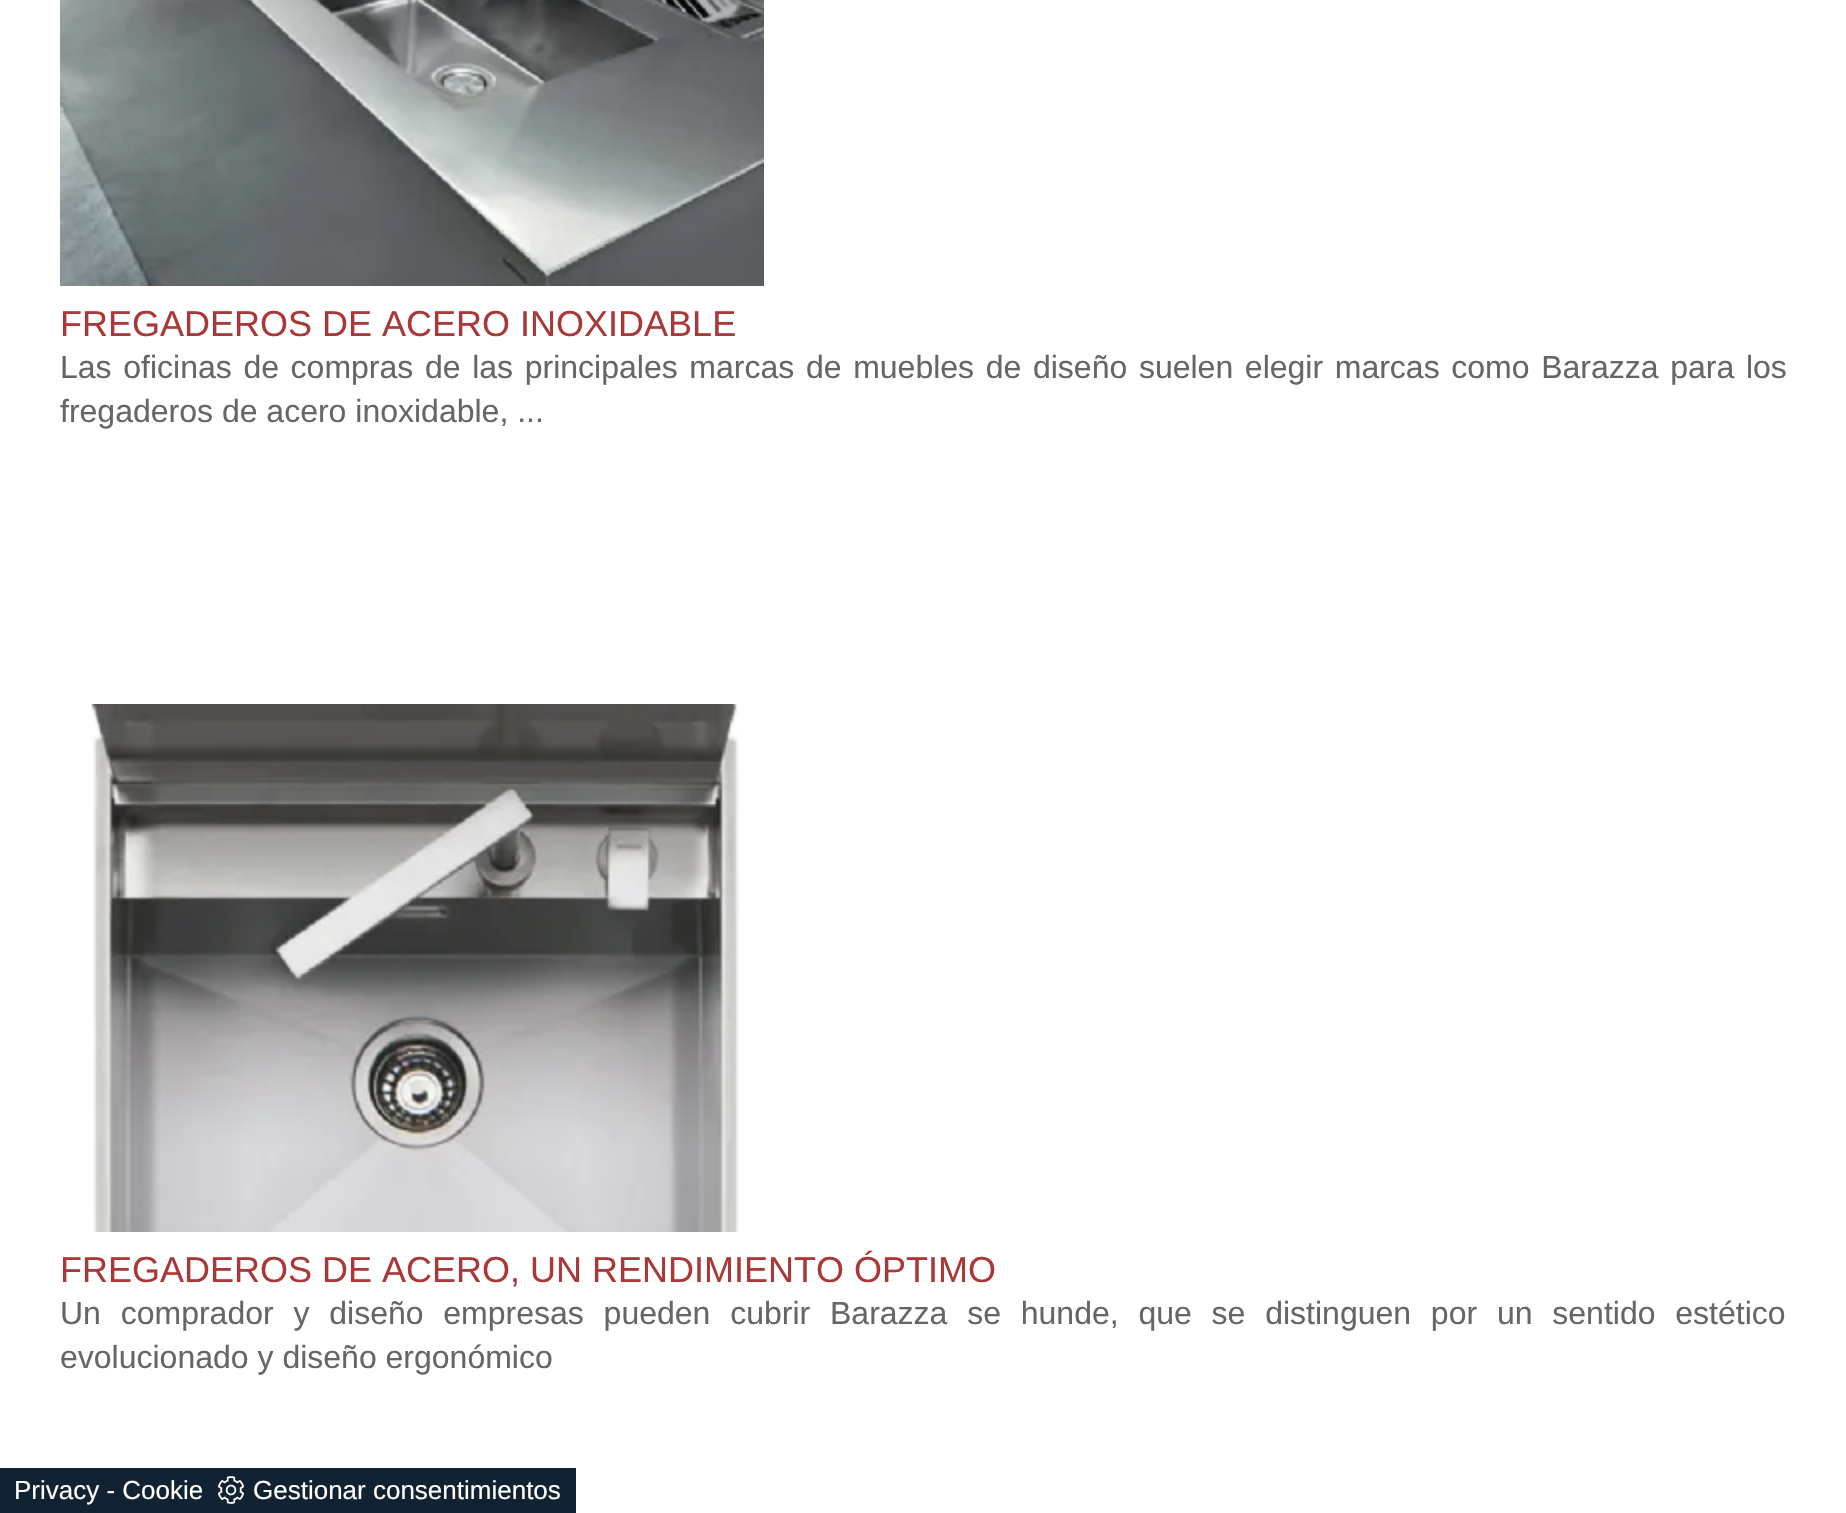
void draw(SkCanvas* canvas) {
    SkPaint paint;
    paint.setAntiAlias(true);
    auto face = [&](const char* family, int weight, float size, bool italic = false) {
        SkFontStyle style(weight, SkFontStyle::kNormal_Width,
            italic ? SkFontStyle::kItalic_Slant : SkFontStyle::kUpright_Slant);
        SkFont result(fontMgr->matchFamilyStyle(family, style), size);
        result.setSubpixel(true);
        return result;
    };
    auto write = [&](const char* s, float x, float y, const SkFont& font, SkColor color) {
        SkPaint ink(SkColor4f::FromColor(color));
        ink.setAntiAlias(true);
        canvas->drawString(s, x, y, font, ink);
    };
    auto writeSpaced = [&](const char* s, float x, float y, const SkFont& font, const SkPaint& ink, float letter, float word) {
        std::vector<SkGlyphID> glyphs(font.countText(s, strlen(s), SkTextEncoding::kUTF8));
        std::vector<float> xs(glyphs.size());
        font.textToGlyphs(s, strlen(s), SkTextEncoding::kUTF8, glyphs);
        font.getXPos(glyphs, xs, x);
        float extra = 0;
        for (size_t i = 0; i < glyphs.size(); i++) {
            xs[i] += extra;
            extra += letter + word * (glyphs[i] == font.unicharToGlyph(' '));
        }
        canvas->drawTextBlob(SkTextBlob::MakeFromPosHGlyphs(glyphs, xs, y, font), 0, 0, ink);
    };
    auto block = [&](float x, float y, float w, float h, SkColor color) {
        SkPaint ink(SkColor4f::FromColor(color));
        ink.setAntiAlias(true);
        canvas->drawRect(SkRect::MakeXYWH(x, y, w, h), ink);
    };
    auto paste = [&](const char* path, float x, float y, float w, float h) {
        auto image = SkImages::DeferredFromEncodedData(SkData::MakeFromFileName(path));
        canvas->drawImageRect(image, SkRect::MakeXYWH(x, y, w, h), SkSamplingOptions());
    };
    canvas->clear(SK_ColorWHITE);
    paste("pic1.png", 60, 0, 704, 286);
    auto kFont1 = face("Liberation Sans", 400, 36);
    write("FREGADEROS DE ACERO INOXIDABLE", 60, 336, kFont1, SkColorSetRGB(170, 56, 56));
    auto kFont2 = face("Liberation Sans", 400, 32);
    paint.setColor(SkColorSetRGB(102, 102, 102));
    writeSpaced("Las oficinas de compras de las principales marcas de muebles de diseño suelen elegir marcas como Barazza para los", 60, 378, kFont2, paint, 0, 2.75f);
    write("fregaderos de acero inoxidable, ...", 60, 422, kFont2, SkColorSetRGB(102, 102, 102));
    paste("pic2.png", 91, 704, 650, 528);
    write("FREGADEROS DE ACERO, UN RENDIMIENTO ÓPTIMO", 60, 1282, kFont1, SkColorSetRGB(170, 56, 56));
    writeSpaced("Un comprador y diseño empresas pueden cubrir Barazza se hunde, que se distinguen por un sentido estético", 60, 1324, kFont2, paint, 0, 10.9f);
    write("evolucionado y diseño ergonómico", 60, 1368, kFont2, SkColorSetRGB(102, 102, 102));
    block(0, 1468, 576, 45, SkColorSetRGB(17, 34, 51));
    auto kFont3 = face("Liberation Sans", 400, 26);
    write("Privacy - Cookie", 14, 1499, kFont3, SK_ColorWHITE);
    paste("pic3.png", 218, 1476, 26, 28);
    write("Gestionar consentimientos", 253, 1499, kFont3, SK_ColorWHITE);
}
